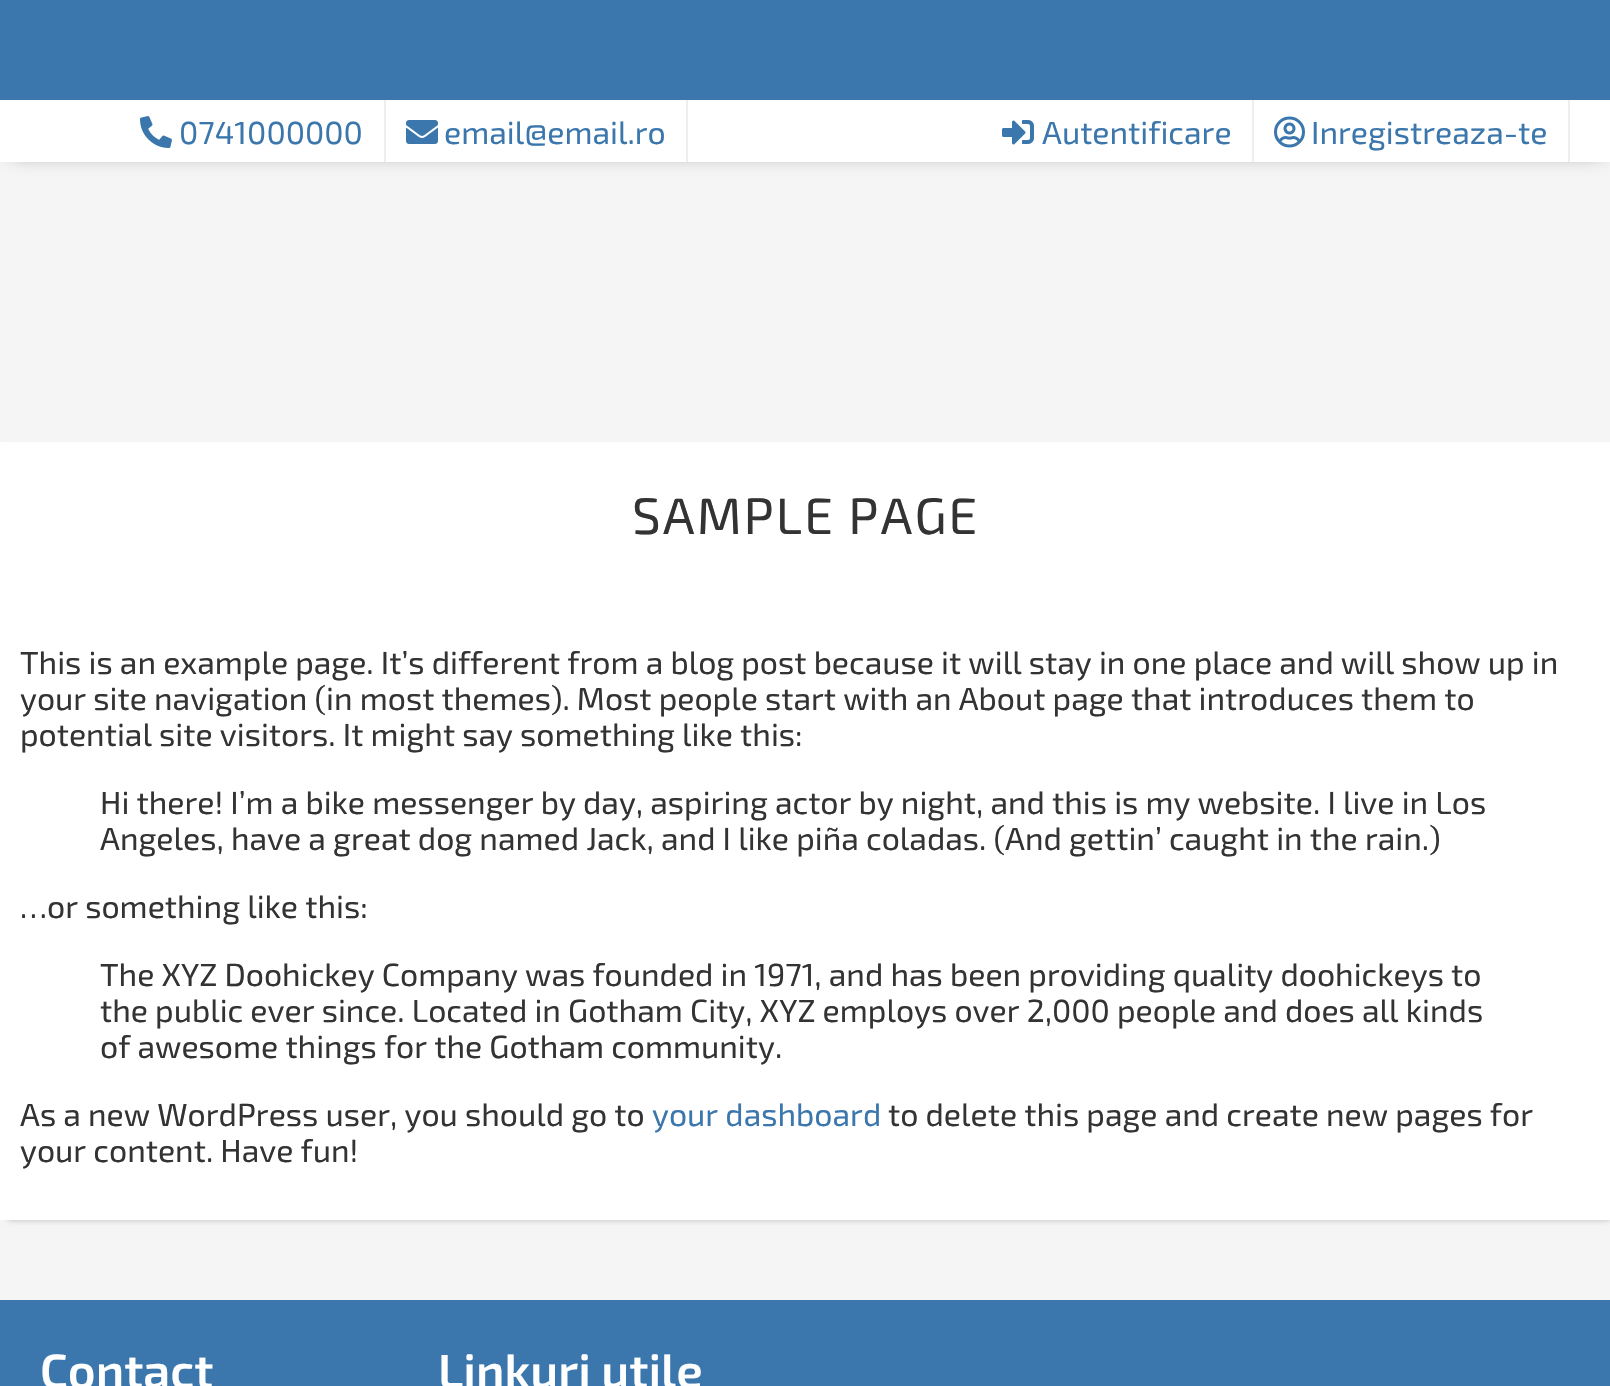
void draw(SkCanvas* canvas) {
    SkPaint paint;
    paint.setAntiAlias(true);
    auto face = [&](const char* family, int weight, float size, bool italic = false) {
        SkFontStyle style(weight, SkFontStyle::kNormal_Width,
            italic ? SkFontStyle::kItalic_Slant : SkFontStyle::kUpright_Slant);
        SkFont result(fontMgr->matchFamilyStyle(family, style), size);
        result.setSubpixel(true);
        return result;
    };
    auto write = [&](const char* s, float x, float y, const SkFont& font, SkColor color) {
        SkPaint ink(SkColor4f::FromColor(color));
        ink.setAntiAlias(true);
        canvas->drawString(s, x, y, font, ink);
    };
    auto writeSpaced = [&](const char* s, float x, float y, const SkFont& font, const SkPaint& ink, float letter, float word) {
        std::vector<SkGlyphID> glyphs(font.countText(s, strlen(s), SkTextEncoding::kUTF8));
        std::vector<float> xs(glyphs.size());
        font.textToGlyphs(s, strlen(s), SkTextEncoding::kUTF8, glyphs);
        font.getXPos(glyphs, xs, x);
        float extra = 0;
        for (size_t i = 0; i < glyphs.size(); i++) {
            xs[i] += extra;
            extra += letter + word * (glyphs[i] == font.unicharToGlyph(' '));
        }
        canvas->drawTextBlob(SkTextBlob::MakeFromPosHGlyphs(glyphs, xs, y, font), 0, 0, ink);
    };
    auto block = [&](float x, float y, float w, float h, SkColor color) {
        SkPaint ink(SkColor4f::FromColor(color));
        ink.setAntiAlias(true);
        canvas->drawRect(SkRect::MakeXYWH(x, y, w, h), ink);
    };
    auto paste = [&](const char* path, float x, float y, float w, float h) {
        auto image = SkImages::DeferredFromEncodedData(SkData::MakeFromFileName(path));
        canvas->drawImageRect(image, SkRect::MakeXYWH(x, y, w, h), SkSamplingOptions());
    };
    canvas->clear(SkColorSetRGB(245, 245, 245));
    paint.setColor(SkColorSetRGB(102, 102, 102));
    paint.setMaskFilter(SkMaskFilter::MakeBlur(kNormal_SkBlurStyle, 10));
    canvas->drawRect(SkRect::MakeXYWH(12, 110, 1590, 42), paint);
    paint.setMaskFilter(nullptr);
    block(0, 0, 1610, 100, SkColorSetRGB(59, 119, 172));
    block(0, 100, 1610, 62, SK_ColorWHITE);
    block(384, 100, 2, 62, SkColorSetRGB(238, 238, 238));
    paste("pic1.png", 140, 116, 32, 32);
    auto kFont1 = face("Exo 2", 400, 32);
    write("0741000000", 179, 144, kFont1, SkColorSetRGB(59, 119, 172));
    block(686, 100, 2, 62, SkColorSetRGB(238, 238, 238));
    paste("pic2.png", 406, 120, 32, 24);
    write("email@email.ro", 444, 144, kFont1, SkColorSetRGB(59, 119, 172));
    block(1252, 100, 2, 62, SkColorSetRGB(238, 238, 238));
    paste("pic3.png", 1002, 120, 32, 25);
    write("Autentificare", 1042, 144, kFont1, SkColorSetRGB(59, 119, 172));
    block(1568, 100, 2, 62, SkColorSetRGB(238, 238, 238));
    paste("pic4.png", 1274, 116, 31, 32);
    write("Inregistreaza-te", 1311, 144, kFont1, SkColorSetRGB(59, 119, 172));
    paint.setColor(SkColorSetRGB(187, 187, 187));
    paint.setMaskFilter(SkMaskFilter::MakeBlur(kNormal_SkBlurStyle, 3));
    canvas->drawRect(SkRect::MakeXYWH(8, 450, 1602, 770), paint);
    paint.setMaskFilter(nullptr);
    block(0, 442, 1610, 778, SK_ColorWHITE);
    auto kFont2 = face("Exo 2", 400, 51.25f);
    paint.setColor(SkColorSetRGB(51, 51, 51));
    writeSpaced("SAMPLE PAGE", 632, 534, kFont2, paint, 2, 0);
    write("This is an example page. It’s different from a blog post because it will stay in one place and will show up in", 20, 674, kFont1, SkColorSetRGB(51, 51, 51));
    write("your site navigation (in most themes). Most people start with an About page that introduces them to", 20, 710, kFont1, SkColorSetRGB(51, 51, 51));
    write("potential site visitors. It might say something like this:", 20, 746, kFont1, SkColorSetRGB(51, 51, 51));
    write("Hi there! I’m a bike messenger by day, aspiring actor by night, and this is my website. I live in Los", 100, 814, kFont1, SkColorSetRGB(51, 51, 51));
    write("Angeles, have a great dog named Jack, and I like piña coladas. (And gettin’ caught in the rain.)", 100, 850, kFont1, SkColorSetRGB(51, 51, 51));
    write("…or something like this:", 20, 918, kFont1, SkColorSetRGB(51, 51, 51));
    write("The XYZ Doohickey Company was founded in 1971, and has been providing quality doohickeys to", 100, 986, kFont1, SkColorSetRGB(51, 51, 51));
    write("the public ever since. Located in Gotham City, XYZ employs over 2,000 people and does all kinds", 100, 1022, kFont1, SkColorSetRGB(51, 51, 51));
    write("of awesome things for the Gotham community.", 100, 1058, kFont1, SkColorSetRGB(51, 51, 51));
    write("As a new WordPress user, you should go to", 20, 1126, kFont1, SkColorSetRGB(51, 51, 51));
    write("your dashboard", 652, 1126, kFont1, SkColorSetRGB(59, 119, 172));
    write("to delete this page and create new pages for", 888, 1126, kFont1, SkColorSetRGB(51, 51, 51));
    write("your content. Have fun!", 20, 1162, kFont1, SkColorSetRGB(51, 51, 51));
    block(0, 1300, 1610, 86, SkColorSetRGB(59, 119, 172));
    auto kFont3 = face("Exo 2", 600, 48);
    write("Contact", 40, 1388, kFont3, SK_ColorWHITE);
    write("Linkuri utile", 438, 1388, kFont3, SK_ColorWHITE);
}
